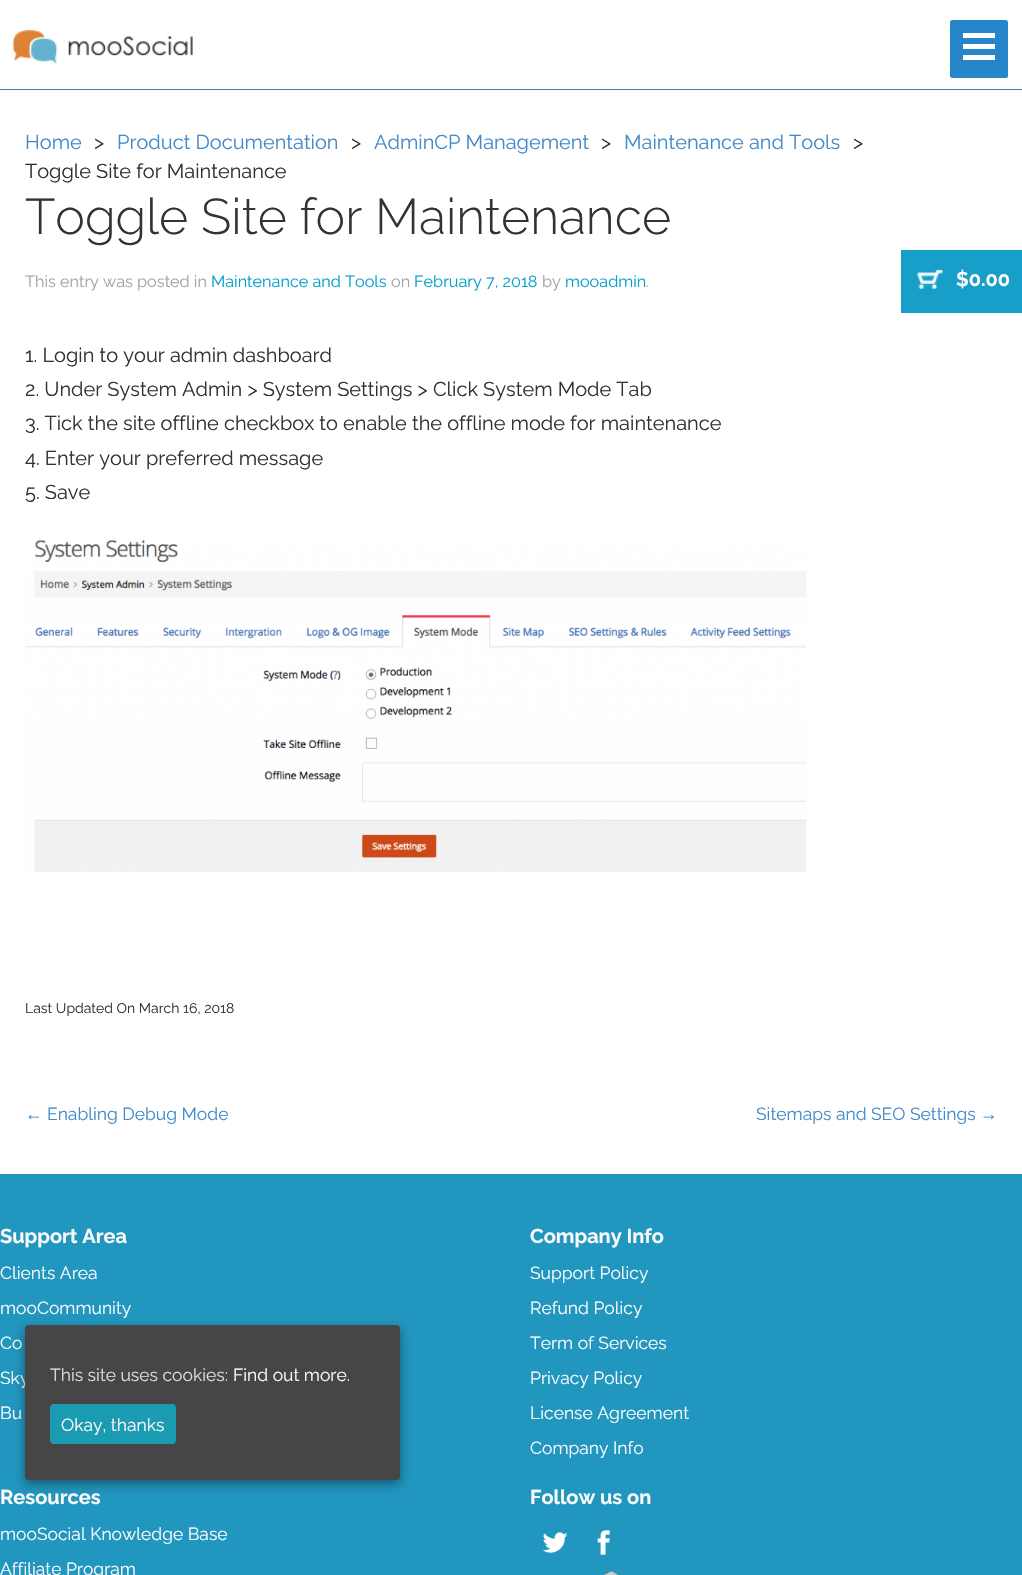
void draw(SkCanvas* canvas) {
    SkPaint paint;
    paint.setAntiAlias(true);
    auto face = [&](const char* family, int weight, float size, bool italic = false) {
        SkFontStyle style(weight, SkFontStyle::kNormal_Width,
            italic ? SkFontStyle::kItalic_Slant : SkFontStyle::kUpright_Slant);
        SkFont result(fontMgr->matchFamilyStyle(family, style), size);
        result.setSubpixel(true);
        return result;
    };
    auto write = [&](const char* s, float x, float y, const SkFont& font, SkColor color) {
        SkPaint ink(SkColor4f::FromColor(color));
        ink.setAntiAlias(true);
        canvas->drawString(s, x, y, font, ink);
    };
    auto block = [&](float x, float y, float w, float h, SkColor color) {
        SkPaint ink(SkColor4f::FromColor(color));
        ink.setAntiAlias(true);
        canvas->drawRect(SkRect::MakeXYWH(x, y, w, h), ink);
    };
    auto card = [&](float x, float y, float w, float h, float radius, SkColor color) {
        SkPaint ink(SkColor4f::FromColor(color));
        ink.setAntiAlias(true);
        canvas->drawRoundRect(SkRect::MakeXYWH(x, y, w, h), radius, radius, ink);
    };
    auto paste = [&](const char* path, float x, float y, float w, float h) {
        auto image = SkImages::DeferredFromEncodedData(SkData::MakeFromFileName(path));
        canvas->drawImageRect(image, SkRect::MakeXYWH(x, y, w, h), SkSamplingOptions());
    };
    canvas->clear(SK_ColorWHITE);
    block(0, 89, 1022, 1, SkColorSetRGB(39, 133, 202));
    paste("pic1.png", 12, 30, 181, 34);
    card(950, 20, 58, 58, 2.5f, SkColorSetRGB(39, 133, 202));
    block(963, 33, 32, 5, SK_ColorWHITE);
    block(963, 44, 32, 5, SK_ColorWHITE);
    block(963, 55, 32, 5, SK_ColorWHITE);
    auto kFont1 = face("Raleway", 400, 20);
    write("Home", 25, 149, kFont1, SkColorSetRGB(66, 139, 202));
    write(">", 94, 149, kFont1, SkColorSetRGB(51, 51, 51));
    write("Product Documentation", 117, 149, kFont1, SkColorSetRGB(66, 139, 202));
    write(">", 351, 149, kFont1, SkColorSetRGB(51, 51, 51));
    write("AdminCP Management", 374, 149, kFont1, SkColorSetRGB(66, 139, 202));
    write(">", 601, 149, kFont1, SkColorSetRGB(51, 51, 51));
    write("Maintenance and Tools", 624, 149, kFont1, SkColorSetRGB(66, 139, 202));
    write(">", 853, 149, kFont1, SkColorSetRGB(51, 51, 51));
    write("Toggle Site for Maintenance", 25, 178, kFont1, SkColorSetRGB(51, 51, 51));
    auto kFont2 = face("Raleway", 300, 50);
    write("Toggle Site for Maintenance", 25, 234, kFont2, SkColorSetRGB(51, 51, 51));
    auto kFont3 = face("Raleway", 400, 16.25f);
    write("This entry was posted in", 25, 287, kFont3, SkColorSetRGB(164, 164, 164));
    write("Maintenance and Tools", 211, 287, kFont3, SkColorSetRGB(5, 160, 201));
    write("on", 391, 287, kFont3, SkColorSetRGB(164, 164, 164));
    write("February 7, 2018", 414, 287, kFont3, SkColorSetRGB(5, 160, 201));
    write("by", 542, 287, kFont3, SkColorSetRGB(164, 164, 164));
    write("mooadmin", 565, 287, kFont3, SkColorSetRGB(5, 160, 201));
    write(".", 646, 287, kFont3, SkColorSetRGB(164, 164, 164));
    write("1. Login to your admin dashboard", 25, 362, kFont1, SkColorSetRGB(51, 51, 51));
    write("2. Under System Admin > System Settings > Click System Mode Tab", 25, 396, kFont1, SkColorSetRGB(51, 51, 51));
    write("3. Tick the site offline checkbox to enable the offline mode for maintenance", 25, 430, kFont1, SkColorSetRGB(51, 51, 51));
    write("4. Enter your preferred message", 25, 465, kFont1, SkColorSetRGB(51, 51, 51));
    write("5. Save", 25, 499, kFont1, SkColorSetRGB(51, 51, 51));
    paste("pic2.png", 25, 539, 782, 333);
    auto kFont4 = face("Raleway", 400, 14);
    write("Last Updated On March 16, 2018", 25, 1013, kFont4, SkColorSetRGB(51, 51, 51));
    auto kFont5 = face("Liberation Sans", 400, 17.5f);
    write("←", 25, 1120, kFont5, SkColorSetRGB(66, 139, 202));
    auto kFont6 = face("Raleway", 400, 17.5f);
    write("Enabling Debug Mode", 47, 1120, kFont6, SkColorSetRGB(66, 139, 202));
    write("Sitemaps and SEO Settings", 756, 1120, kFont6, SkColorSetRGB(66, 139, 202));
    write("→", 980, 1120, kFont5, SkColorSetRGB(66, 139, 202));
    block(901, 250, 121, 63, SkColorSetRGB(24, 159, 201));
    paste("pic3.png", 917, 269, 26, 20);
    auto kFont7 = face("Raleway", 700, 20);
    write("$0.00", 956, 286, kFont7, SkColorSetRGB(250, 250, 250));
    block(0, 1174, 1022, 401, SkColorSetRGB(33, 150, 191));
    write("Support Area", 0, 1243, kFont7, SkColorSetRGB(250, 250, 250));
    write("Clients Area", 0, 1279, kFont6, SkColorSetRGB(250, 250, 250));
    write("mooCommunity", 0, 1314, kFont6, SkColorSetRGB(250, 250, 250));
    write("Co", 0, 1349, kFont6, SkColorSetRGB(250, 250, 250));
    write("Sky", 0, 1384, kFont6, SkColorSetRGB(250, 250, 250));
    write("Bu", 0, 1419, kFont6, SkColorSetRGB(250, 250, 250));
    write("Company Info", 530, 1243, kFont7, SkColorSetRGB(250, 250, 250));
    write("Support Policy", 530, 1279, kFont6, SkColorSetRGB(250, 250, 250));
    write("Refund Policy", 530, 1314, kFont6, SkColorSetRGB(250, 250, 250));
    write("Term of Services", 530, 1349, kFont6, SkColorSetRGB(250, 250, 250));
    write("Privacy Policy", 530, 1384, kFont6, SkColorSetRGB(250, 250, 250));
    write("License Agreement", 530, 1419, kFont6, SkColorSetRGB(250, 250, 250));
    write("Company Info", 530, 1454, kFont6, SkColorSetRGB(250, 250, 250));
    write("Resources", 0, 1504, kFont7, SkColorSetRGB(250, 250, 250));
    write("mooSocial Knowledge Base", 0, 1540, kFont6, SkColorSetRGB(250, 250, 250));
    write("Affiliate Program", 0, 1575, kFont6, SkColorSetRGB(250, 250, 250));
    write("Follow us on", 530, 1504, kFont7, SkColorSetRGB(250, 250, 250));
    paste("pic4.png", 542, 1532, 26, 21);
    paste("pic5.png", 597, 1530, 13, 25);
    paste("pic6.png", 604, 1571, 15, 4);
    paint.setColor(SkColorSetARGB(102, 0, 0, 0));
    paint.setMaskFilter(SkMaskFilter::MakeBlur(kNormal_SkBlurStyle, 5.5f));
    canvas->drawRoundRect(SkRect::MakeXYWH(25, 1329, 375, 155), 4, 4, paint);
    paint.setMaskFilter(nullptr);
    card(25, 1325, 375, 155, 4, SkColorSetRGB(70, 70, 70));
    write("This site uses cookies:", 50, 1381, kFont6, SkColorSetRGB(221, 221, 221));
    write("Find out more.", 233, 1381, kFont6, SkColorSetRGB(250, 250, 250));
    card(50, 1404, 126, 40, 4, SkColorSetRGB(27, 155, 178));
    write("Okay, thanks", 61, 1431, kFont6, SkColorSetRGB(250, 250, 250));
}
